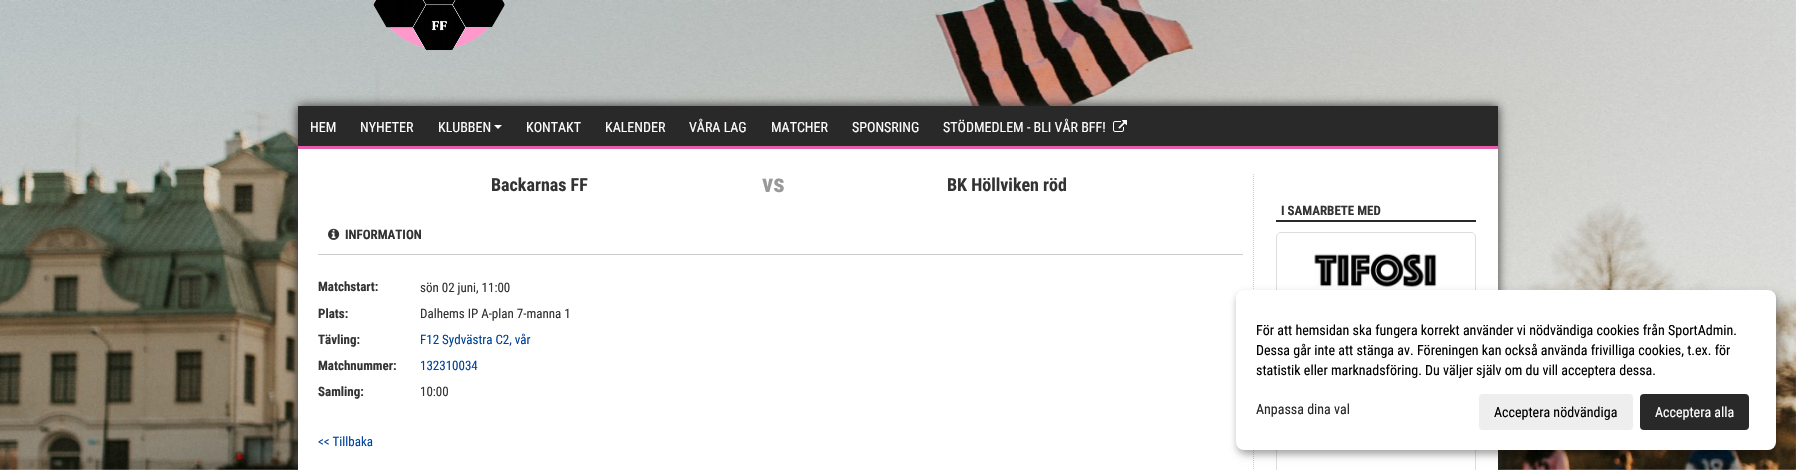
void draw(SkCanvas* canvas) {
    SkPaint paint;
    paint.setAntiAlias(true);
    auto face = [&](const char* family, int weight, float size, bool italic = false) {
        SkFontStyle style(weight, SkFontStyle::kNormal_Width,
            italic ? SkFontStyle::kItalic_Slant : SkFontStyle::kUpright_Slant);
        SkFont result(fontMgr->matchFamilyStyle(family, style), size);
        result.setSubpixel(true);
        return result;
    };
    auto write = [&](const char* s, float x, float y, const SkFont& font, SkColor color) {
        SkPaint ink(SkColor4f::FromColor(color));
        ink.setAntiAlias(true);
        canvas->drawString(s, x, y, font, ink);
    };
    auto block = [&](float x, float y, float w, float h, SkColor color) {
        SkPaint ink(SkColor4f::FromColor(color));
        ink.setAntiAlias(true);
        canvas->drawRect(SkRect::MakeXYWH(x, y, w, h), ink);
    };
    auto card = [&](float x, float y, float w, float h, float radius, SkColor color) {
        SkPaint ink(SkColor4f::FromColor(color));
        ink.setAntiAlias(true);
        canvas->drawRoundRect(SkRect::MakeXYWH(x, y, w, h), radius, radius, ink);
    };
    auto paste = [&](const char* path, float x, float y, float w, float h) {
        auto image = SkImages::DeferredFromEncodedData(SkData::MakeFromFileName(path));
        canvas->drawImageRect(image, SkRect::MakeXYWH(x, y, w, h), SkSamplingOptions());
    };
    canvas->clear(SK_ColorWHITE);
    paste("pic1.png", 0, 0, 1796, 470);
    paste("pic2.png", 373, 0, 132, 51);
    paint.setColor(SkColorSetRGB(51, 51, 51));
    paint.setMaskFilter(SkMaskFilter::MakeBlur(kNormal_SkBlurStyle, 5));
    canvas->drawRect(SkRect::MakeXYWH(298, 106, 1200, 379), paint);
    paint.setMaskFilter(nullptr);
    block(298, 149, 1200, 321, SK_ColorWHITE);
    block(298, 106, 1200, 40, SkColorSetRGB(41, 41, 41));
    auto kFont1 = face("Roboto Condensed", 400, 14);
    write("HEM", 310, 132, kFont1, SK_ColorWHITE);
    write("NYHETER", 360, 132, kFont1, SK_ColorWHITE);
    write("KLUBBEN", 438, 132, kFont1, SK_ColorWHITE);
    paint.setColor(SK_ColorWHITE);
    canvas->drawPath(SkPathBuilder().moveTo(494, 125).lineTo(502, 125).lineTo(498, 129).close().detach(), paint);
    write("KONTAKT", 526, 132, kFont1, SK_ColorWHITE);
    write("KALENDER", 605, 132, kFont1, SK_ColorWHITE);
    write("VÅRA LAG", 689, 132, kFont1, SK_ColorWHITE);
    write("MATCHER", 771, 132, kFont1, SK_ColorWHITE);
    write("SPONSRING", 852, 132, kFont1, SK_ColorWHITE);
    write("STÖDMEDLEM - BLI VÅR BFF!", 943, 132, kFont1, SK_ColorWHITE);
    paste("pic3.png", 1113, 120, 14, 12);
    block(298, 146, 1200, 3, SkColorSetRGB(230, 94, 171));
    auto kFont2 = face("Roboto Condensed", 700, 18);
    write("Backarnas FF", 491, 191, kFont2, SkColorSetRGB(51, 51, 51));
    auto kFont3 = face("Roboto Condensed", 700, 25);
    write("vs", 762, 192, kFont3, SkColorSetRGB(153, 153, 153));
    write("BK Höllviken röd", 947, 191, kFont2, SkColorSetRGB(51, 51, 51));
    block(318, 254, 925, 1, SkColorSetRGB(204, 204, 204));
    paste("pic4.png", 328, 228, 12, 12);
    auto kFont4 = face("Roboto Condensed", 700, 13);
    write("INFORMATION", 345, 239, kFont4, SkColorSetRGB(51, 51, 51));
    write("Matchstart:", 318, 291, kFont4, SkColorSetRGB(51, 51, 51));
    auto kFont5 = face("Roboto Condensed", 400, 13);
    write("sön 02 juni, 11:00", 420, 292, kFont5, SkColorSetRGB(51, 51, 51));
    write("Plats:", 318, 318, kFont4, SkColorSetRGB(51, 51, 51));
    write("Dalhems IP A-plan 7-manna 1", 420, 318, kFont5, SkColorSetRGB(51, 51, 51));
    write("Tävling:", 318, 344, kFont4, SkColorSetRGB(51, 51, 51));
    write("F12 Sydvästra C2, vår", 420, 344, kFont5, SkColorSetRGB(0, 68, 153));
    write("Matchnummer:", 318, 370, kFont4, SkColorSetRGB(51, 51, 51));
    write("132310034", 420, 370, kFont5, SkColorSetRGB(0, 68, 153));
    write("Samling:", 318, 396, kFont4, SkColorSetRGB(51, 51, 51));
    write("10:00", 420, 396, kFont5, SkColorSetRGB(51, 51, 51));
    write("<< Tillbaka", 318, 446, kFont5, SkColorSetRGB(0, 68, 153));
    paint.setStyle(SkPaint::kStroke_Style);
    paint.setStrokeWidth(1);
    paint.setColor(SkColorSetRGB(204, 204, 204));
    paint.setPathEffect(SkDashPathEffect::Make({{1, 1}}, 0));
    canvas->drawPath(SkPathBuilder().moveTo(1253.5f, 174).lineTo(1253.5f, 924).detach(), paint);
    paint.setPathEffect(nullptr);
    block(1276, 220, 200, 2, SkColorSetRGB(41, 41, 41));
    write("I SAMARBETE MED", 1281, 215, kFont4, SkColorSetRGB(51, 51, 51));
    paint.setColor(SkColorSetRGB(221, 221, 221));
    canvas->drawRoundRect(SkRect::MakeXYWH(1276.5f, 232.5f, 199, 75), 4.5f, 4.5f, paint);
    paste("pic5.png", 1314, 253, 123, 35);
    canvas->drawRect(SkRect::MakeXYWH(1276.5f, 440.5f, 199, 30), paint);
    paint.setStyle(SkPaint::kFill_Style);
    paint.setColor(SkColorSetARGB(48, 0, 0, 0));
    paint.setMaskFilter(SkMaskFilter::MakeBlur(kNormal_SkBlurStyle, 5));
    canvas->drawRoundRect(SkRect::MakeXYWH(1241, 295, 540, 160), 8, 8, paint);
    paint.setMaskFilter(nullptr);
    paint.setColor(SkColorSetARGB(51, 0, 0, 0));
    paint.setMaskFilter(SkMaskFilter::MakeBlur(kNormal_SkBlurStyle, 3));
    canvas->drawRoundRect(SkRect::MakeXYWH(1236, 294, 540, 160), 8, 8, paint);
    paint.setMaskFilter(nullptr);
    card(1236, 290, 540, 160, 8, SK_ColorWHITE);
    write("För att hemsidan ska fungera korrekt använder vi nödvändiga cookies från SportAdmin.", 1256, 335, kFont1, SK_ColorBLACK);
    write("Dessa går inte att stänga av. Föreningen kan också använda frivilliga cookies, t.ex. för", 1256, 355, kFont1, SK_ColorBLACK);
    write("statistik eller marknadsföring. Du väljer själv om du vill acceptera dessa.", 1256, 375, kFont1, SK_ColorBLACK);
    write("Anpassa dina val", 1256, 414, kFont1, SkColorSetRGB(41, 41, 41));
    card(1479, 394, 154, 36, 4, SkColorSetRGB(238, 238, 238));
    write("Acceptera nödvändiga", 1494, 417, kFont1, SK_ColorBLACK);
    card(1640, 394, 109, 36, 4, SkColorSetRGB(41, 41, 41));
    write("Acceptera alla", 1655, 417, kFont1, SK_ColorWHITE);
}
